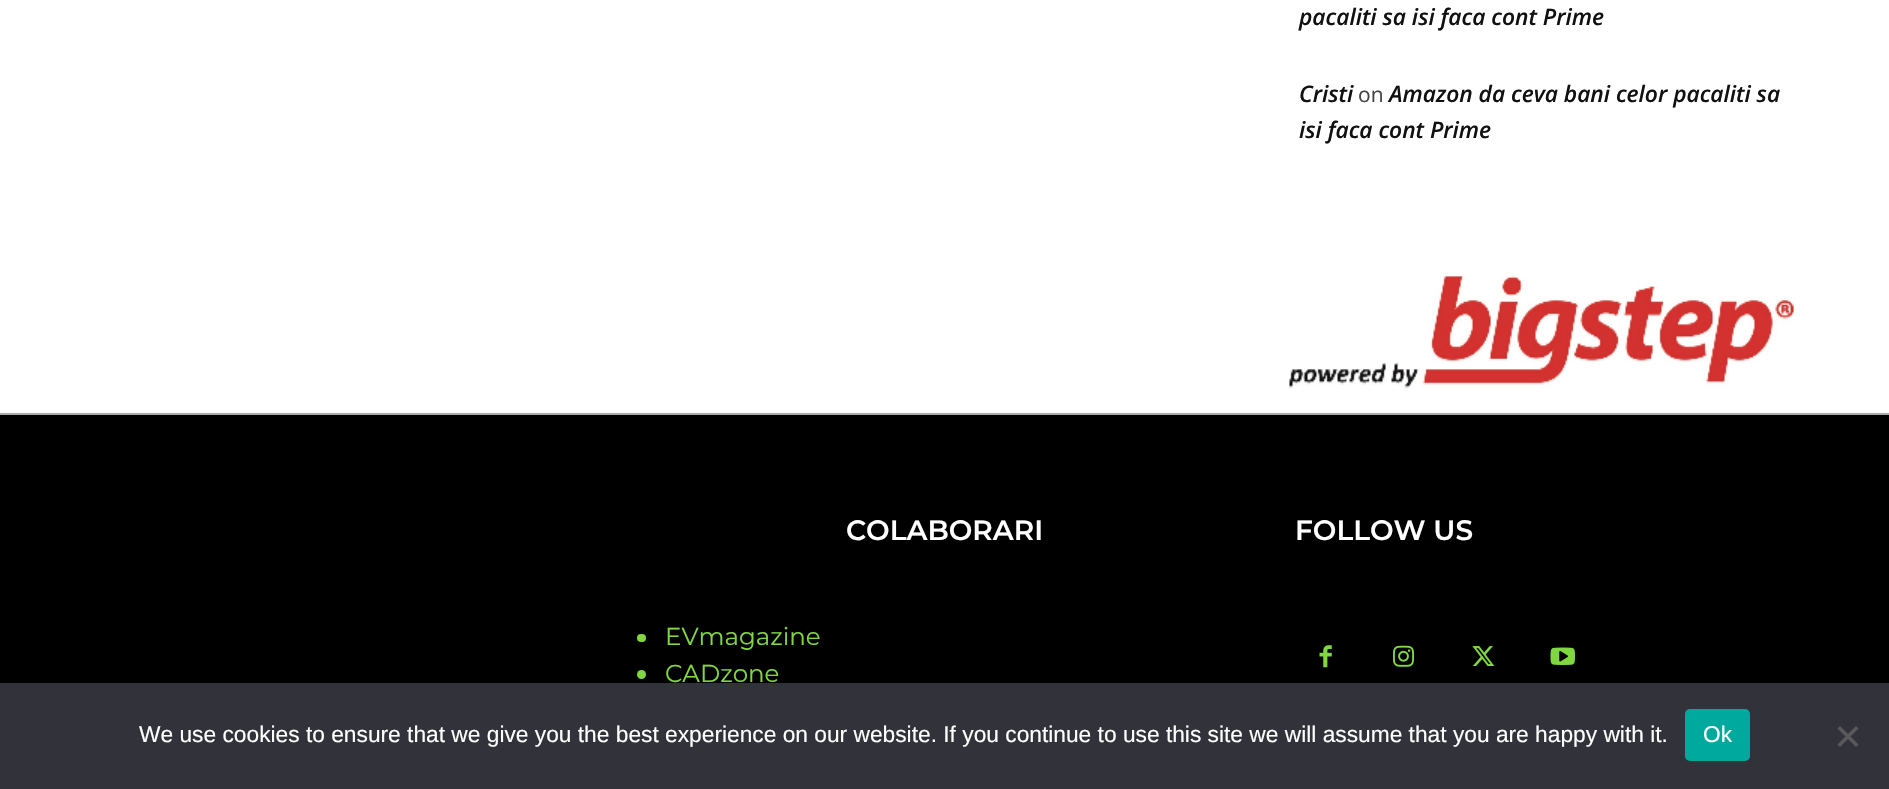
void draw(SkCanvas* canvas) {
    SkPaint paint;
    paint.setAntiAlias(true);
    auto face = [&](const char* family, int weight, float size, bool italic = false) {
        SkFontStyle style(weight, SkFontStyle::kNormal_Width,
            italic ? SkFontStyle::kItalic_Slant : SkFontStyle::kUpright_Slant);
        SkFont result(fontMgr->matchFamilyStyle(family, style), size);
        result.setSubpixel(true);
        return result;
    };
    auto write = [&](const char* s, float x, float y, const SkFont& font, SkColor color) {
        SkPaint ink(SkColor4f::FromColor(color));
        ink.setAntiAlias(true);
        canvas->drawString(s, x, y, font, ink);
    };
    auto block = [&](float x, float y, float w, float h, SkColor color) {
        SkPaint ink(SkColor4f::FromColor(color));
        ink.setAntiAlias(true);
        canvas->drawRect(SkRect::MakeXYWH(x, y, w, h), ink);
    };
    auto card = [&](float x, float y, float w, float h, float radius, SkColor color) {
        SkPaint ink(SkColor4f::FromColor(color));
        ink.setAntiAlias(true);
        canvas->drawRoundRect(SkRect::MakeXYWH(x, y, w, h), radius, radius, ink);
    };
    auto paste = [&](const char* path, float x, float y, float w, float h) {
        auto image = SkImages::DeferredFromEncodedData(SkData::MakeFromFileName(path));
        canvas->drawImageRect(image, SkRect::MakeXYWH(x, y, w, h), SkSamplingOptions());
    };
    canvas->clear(SK_ColorWHITE);
    auto kFont1 = face("Open Sans", 600, 22.75f, true);
    write("pacaliti sa isi faca cont Prime", 1299, 25, kFont1, SkColorSetRGB(17, 17, 17));
    write("Cristi", 1299, 102, kFont1, SkColorSetRGB(17, 17, 17));
    auto kFont2 = face("Open Sans", 400, 21);
    write("on", 1358, 102, kFont2, SkColorSetRGB(68, 68, 68));
    write("Amazon da ceva bani celor pacaliti sa", 1389, 102, kFont1, SkColorSetRGB(17, 17, 17));
    write("isi faca cont Prime", 1299, 138, kFont1, SkColorSetRGB(17, 17, 17));
    paste("pic1.png", 1289, 276, 507, 113);
    block(0, 415, 1889, 268, SK_ColorBLACK);
    block(0, 413, 1889, 2, SkColorSetRGB(170, 170, 170));
    auto kFont3 = face("Montserrat", 600, 28);
    write("COLABORARI", 846, 540, kFont3, SK_ColorWHITE);
    card(637, 634, 9, 8, 4, SkColorSetRGB(129, 215, 66));
    auto kFont4 = face("Montserrat", 400, 24.5f);
    write("EVmagazine", 665, 645, kFont4, SkColorSetRGB(129, 215, 66));
    paint.setColor(SkColorSetRGB(129, 215, 66));
    canvas->drawCircle(641.5f, 674.5f, 4.5f, paint);
    write("CADzone", 665, 682, kFont4, SkColorSetRGB(129, 215, 66));
    write("FOLLOW US", 1295, 540, kFont3, SK_ColorWHITE);
    paste("pic2.png", 1319, 645, 13, 23);
    paste("pic3.png", 1393, 645, 21, 22);
    paste("pic4.png", 1472, 646, 23, 20);
    paste("pic5.png", 1550, 647, 25, 18);
    block(0, 683, 1889, 106, SkColorSetRGB(50, 50, 58));
    auto kFont5 = face("Liberation Sans", 400, 22.75f);
    write("We use cookies to ensure that we give you the best experience on our website. If you continue to use this site we will assume that you are happy with it.", 139, 742, kFont5, SK_ColorWHITE);
    card(1685, 709, 65, 52, 5, SkColorSetRGB(0, 169, 157));
    write("Ok", 1703, 742, kFont5, SK_ColorWHITE);
    paint.setColor(SkColorSetRGB(89, 89, 93));
    canvas->drawPath(SkPathBuilder().moveTo(1856, 726).lineTo(1858.5f, 728.5f).lineTo(1840, 747).lineTo(1837.5f, 744.5f).close().detach(), paint);
    canvas->drawPath(SkPathBuilder().moveTo(1837.5f, 728.5f).lineTo(1840, 726).lineTo(1858.5f, 744.5f).lineTo(1856, 747).close().detach(), paint);
}
